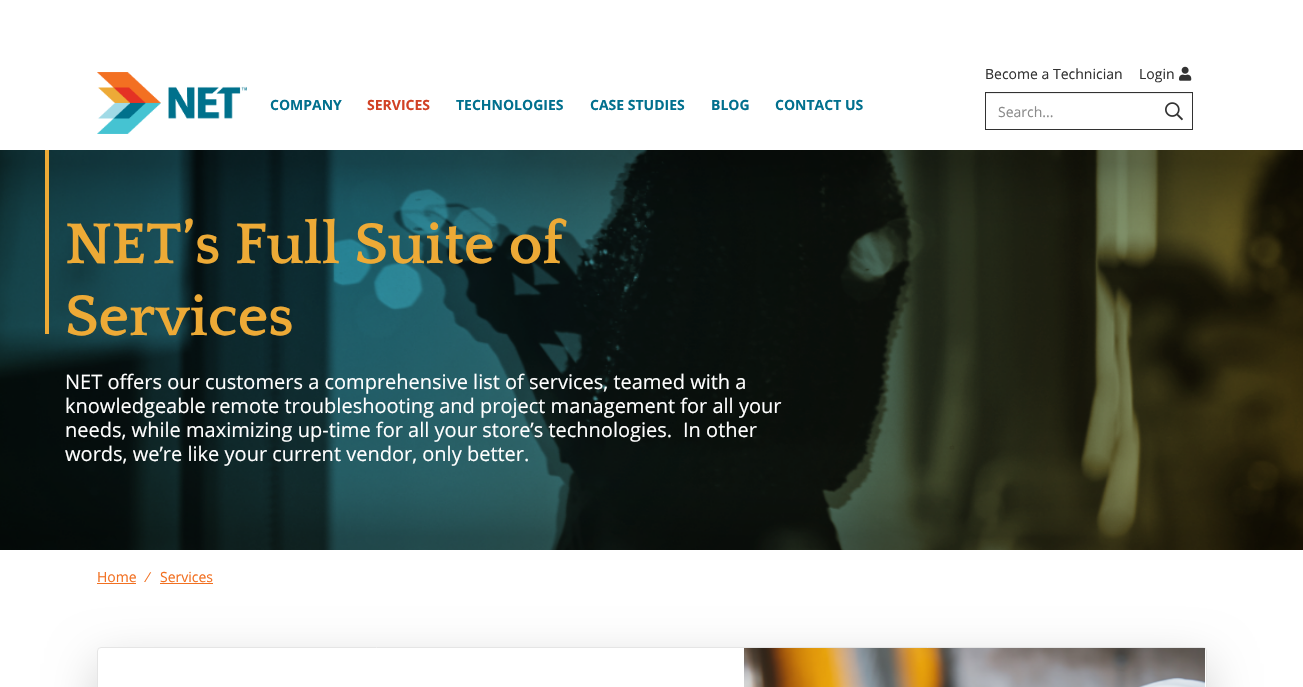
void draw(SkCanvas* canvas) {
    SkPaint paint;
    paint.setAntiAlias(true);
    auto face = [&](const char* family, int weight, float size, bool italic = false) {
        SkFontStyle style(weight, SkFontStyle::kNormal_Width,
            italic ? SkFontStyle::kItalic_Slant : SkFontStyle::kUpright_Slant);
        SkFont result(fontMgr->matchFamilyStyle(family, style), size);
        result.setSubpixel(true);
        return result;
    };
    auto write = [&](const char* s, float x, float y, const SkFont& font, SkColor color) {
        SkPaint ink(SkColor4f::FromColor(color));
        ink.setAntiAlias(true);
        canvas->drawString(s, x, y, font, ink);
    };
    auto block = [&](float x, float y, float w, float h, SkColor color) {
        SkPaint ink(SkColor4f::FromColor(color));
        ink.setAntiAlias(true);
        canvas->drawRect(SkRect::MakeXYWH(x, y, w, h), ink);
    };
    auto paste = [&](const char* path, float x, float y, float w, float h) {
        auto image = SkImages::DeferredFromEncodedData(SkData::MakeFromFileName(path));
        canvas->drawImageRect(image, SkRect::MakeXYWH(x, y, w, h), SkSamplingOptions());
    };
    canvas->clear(SK_ColorWHITE);
    paste("pic1.png", 97, 72, 150, 62);
    auto kFont1 = face("Open Sans", 700, 14);
    write("COMPANY", 270, 110, kFont1, SkColorSetRGB(1, 112, 142));
    write("SERVICES", 367, 110, kFont1, SkColorSetRGB(209, 65, 36));
    write("TECHNOLOGIES", 456, 110, kFont1, SkColorSetRGB(1, 112, 142));
    write("CASE STUDIES", 590, 110, kFont1, SkColorSetRGB(1, 112, 142));
    write("BLOG", 711, 110, kFont1, SkColorSetRGB(1, 112, 142));
    write("CONTACT US", 775, 110, kFont1, SkColorSetRGB(1, 112, 142));
    auto kFont2 = face("Open Sans", 400, 14);
    write("Become a Technician", 985, 79, kFont2, SkColorSetRGB(50, 50, 50));
    write("Login", 1139, 79, kFont2, SkColorSetRGB(50, 50, 50));
    paste("pic2.png", 1179, 66, 13, 15);
    block(986, 93, 206, 1, SkColorSetRGB(236, 236, 236));
    paint.setStyle(SkPaint::kStroke_Style);
    paint.setStrokeWidth(1);
    paint.setColor(SkColorSetRGB(50, 50, 50));
    canvas->drawRect(SkRect::MakeXYWH(985.5f, 92.5f, 207, 37), paint);
    write("Search...", 998, 117, kFont2, SkColorSetRGB(139, 139, 139));
    paste("pic3.png", 1165, 102, 18, 19);
    paste("pic4.png", 0, 150, 1303, 400);
    block(45, 150, 4, 184, SkColorSetRGB(237, 170, 54));
    auto kFont3 = face("Quattrocento", 700, 60);
    write("NET’s Full Suite of", 65, 263, kFont3, SkColorSetRGB(237, 170, 54));
    write("Services", 65, 335, kFont3, SkColorSetRGB(237, 170, 54));
    auto kFont4 = face("Open Sans", 400, 20);
    write("NET offers our customers a comprehensive list of services, teamed with a", 65, 389, kFont4, SK_ColorWHITE);
    write("knowledgeable remote troubleshooting and project management for all your", 65, 413, kFont4, SK_ColorWHITE);
    write("needs, while maximizing up-time for all your store’s technologies.", 65, 437, kFont4, SK_ColorWHITE);
    write("In other", 683, 437, kFont4, SK_ColorWHITE);
    write("words, we’re like your current vendor, only better.", 65, 461, kFont4, SK_ColorWHITE);
    write("Home", 97, 582, kFont2, SkColorSetRGB(242, 112, 33));
    block(97, 583, 39, 1, SkColorSetRGB(242, 112, 33));
    auto kFont5 = face("Liberation Sans", 400, 14);
    write("⁄", 147, 582, kFont5, SkColorSetRGB(242, 112, 33));
    write("Services", 160, 582, kFont2, SkColorSetRGB(242, 112, 33));
    block(160, 583, 53, 1, SkColorSetRGB(242, 112, 33));
    canvas->save();
    canvas->clipPath(SkPathBuilder(SkPathFillType::kEvenOdd).moveTo(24, 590).lineTo(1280, 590).lineTo(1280, 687).lineTo(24, 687).close().moveTo(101, 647).lineTo(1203, 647).cubicTo(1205, 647, 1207, 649, 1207, 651).lineTo(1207, 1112).cubicTo(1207, 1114, 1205, 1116, 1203, 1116).lineTo(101, 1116).cubicTo(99, 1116, 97, 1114, 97, 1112).lineTo(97, 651).cubicTo(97, 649, 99, 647, 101, 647).close().detach(), true);
    paint.setStyle(SkPaint::kFill_Style);
    paint.setColor(SkColorSetARGB(46, 0, 0, 0));
    paint.setMaskFilter(SkMaskFilter::MakeBlur(kNormal_SkBlurStyle, 24));
    canvas->drawRoundRect(SkRect::MakeXYWH(97, 663, 1110, 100), 4, 4, paint);
    paint.setMaskFilter(nullptr);
    canvas->restore();
    paint.setStyle(SkPaint::kStroke_Style);
    paint.setColor(SkColorSetRGB(229, 229, 229));
    canvas->drawRoundRect(SkRect::MakeXYWH(97.5f, 647.5f, 1109, 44), 3.5f, 3.5f, paint);
    paste("pic5.png", 744, 648, 461, 39);
}
